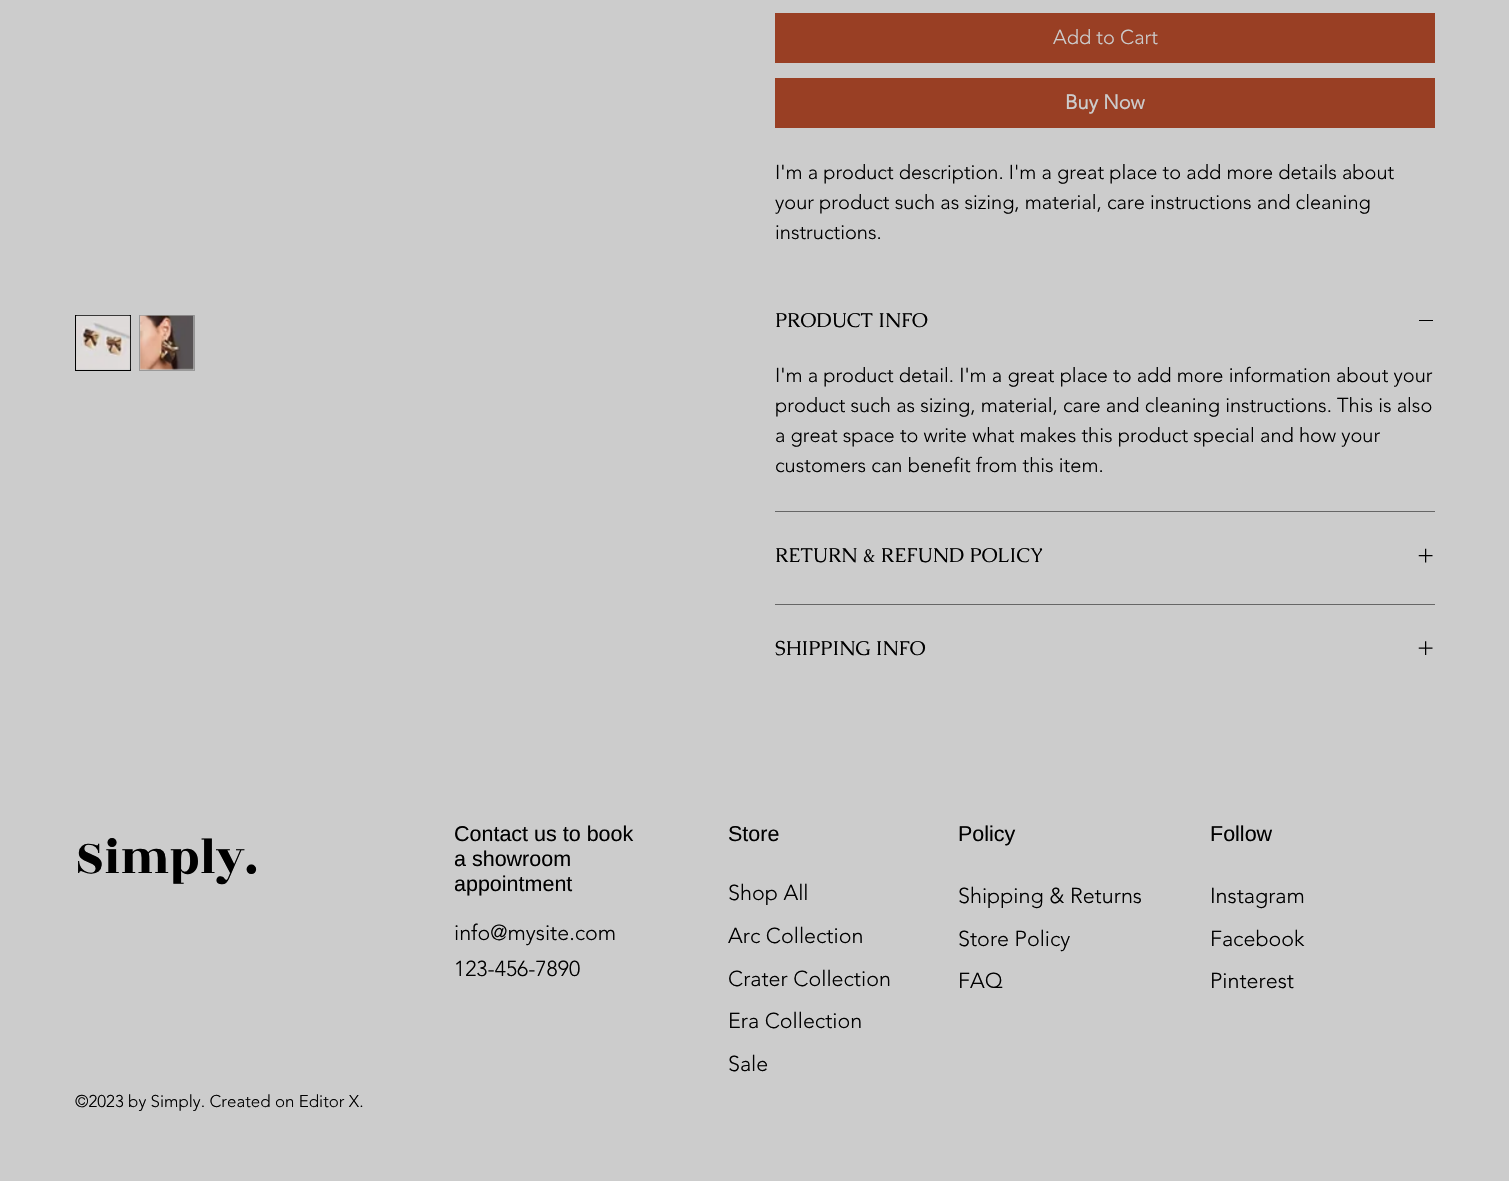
void draw(SkCanvas* canvas) {
    SkPaint paint;
    paint.setAntiAlias(true);
    auto face = [&](const char* family, int weight, float size, bool italic = false) {
        SkFontStyle style(weight, SkFontStyle::kNormal_Width,
            italic ? SkFontStyle::kItalic_Slant : SkFontStyle::kUpright_Slant);
        SkFont result(fontMgr->matchFamilyStyle(family, style), size);
        result.setSubpixel(true);
        return result;
    };
    auto write = [&](const char* s, float x, float y, const SkFont& font, SkColor color) {
        SkPaint ink(SkColor4f::FromColor(color));
        ink.setAntiAlias(true);
        canvas->drawString(s, x, y, font, ink);
    };
    auto block = [&](float x, float y, float w, float h, SkColor color) {
        SkPaint ink(SkColor4f::FromColor(color));
        ink.setAntiAlias(true);
        canvas->drawRect(SkRect::MakeXYWH(x, y, w, h), ink);
    };
    auto paste = [&](const char* path, float x, float y, float w, float h) {
        auto image = SkImages::DeferredFromEncodedData(SkData::MakeFromFileName(path));
        canvas->drawImageRect(image, SkRect::MakeXYWH(x, y, w, h), SkSamplingOptions());
    };
    canvas->clear(SkColorSetRGB(204, 204, 204));
    paint.setStyle(SkPaint::kStroke_Style);
    paint.setStrokeWidth(1);
    paint.setColor(SK_ColorBLACK);
    canvas->drawRect(SkRect::MakeXYWH(75.5f, 315.5f, 55, 55), paint);
    paste("pic1.png", 76, 315, 55, 55);
    paint.setColor(SkColorSetRGB(153, 153, 153));
    canvas->drawRect(SkRect::MakeXYWH(139.5f, 315.5f, 55, 55), paint);
    paste("pic2.png", 140, 315, 55, 55);
    block(775, 13, 660, 50, SkColorSetRGB(153, 63, 36));
    auto kFont1 = face("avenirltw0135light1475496", 300, 20);
    write("Add to Cart", 1053, 44, kFont1, SkColorSetRGB(204, 204, 204));
    block(775, 78, 660, 50, SkColorSetRGB(153, 63, 36));
    auto kFont2 = face("avenirltw0135light1475496", 700, 20);
    write("Buy Now", 1065, 109, kFont2, SkColorSetRGB(204, 204, 204));
    write("I'm a product description. I'm a great place to add more details about", 775, 179, kFont1, SK_ColorBLACK);
    write("your product such as sizing, material, care instructions and cleaning", 775, 209, kFont1, SK_ColorBLACK);
    write("instructions.", 775, 239, kFont1, SK_ColorBLACK);
    block(775, 511, 660, 1, SkColorSetRGB(102, 102, 102));
    auto kFont3 = face("Caudex", 400, 20);
    write("PRODUCT INFO", 775, 327, kFont3, SK_ColorBLACK);
    block(1419, 320, 14, 1, SK_ColorBLACK);
    write("I'm a product detail. I'm a great place to add more information about your", 775, 382, kFont1, SK_ColorBLACK);
    write("product such as sizing, material, care and cleaning instructions. This is also", 775, 412, kFont1, SK_ColorBLACK);
    write("a great space to write what makes this product special and how your", 775, 442, kFont1, SK_ColorBLACK);
    write("customers can benefit from this item.", 775, 472, kFont1, SK_ColorBLACK);
    block(775, 604, 660, 1, SkColorSetRGB(102, 102, 102));
    write("RETURN & REFUND POLICY", 775, 562, kFont3, SK_ColorBLACK);
    paste("pic3.png", 1418, 548, 15, 15);
    write("SHIPPING INFO", 775, 655, kFont3, SK_ColorBLACK);
    paste("pic4.png", 1418, 641, 15, 14);
    auto kFont4 = face("Rozha One", 400, 51.5f);
    write("Simply.", 75, 873, kFont4, SK_ColorBLACK);
    auto kFont5 = face("Liberation Sans", 400, 21.5f);
    write("Contact us to book", 454, 841, kFont5, SK_ColorBLACK);
    write("a showroom", 454, 866, kFont5, SK_ColorBLACK);
    write("appointment", 454, 891, kFont5, SK_ColorBLACK);
    auto kFont6 = face("avenirltw0135light1475496", 300, 21.5f);
    write("info@mysite.com", 454, 940, kFont6, SK_ColorBLACK);
    write("123-456-7890", 454, 976, kFont6, SK_ColorBLACK);
    write("Store", 728, 841, kFont5, SK_ColorBLACK);
    write("Shop All", 728, 900, kFont6, SK_ColorBLACK);
    write("Arc Collection", 728, 943, kFont6, SK_ColorBLACK);
    write("Crater Collection", 728, 986, kFont6, SK_ColorBLACK);
    write("Era Collection", 728, 1028, kFont6, SK_ColorBLACK);
    write("Sale", 728, 1071, kFont6, SK_ColorBLACK);
    write("Policy", 958, 841, kFont5, SK_ColorBLACK);
    write("Shipping & Returns", 958, 903, kFont6, SK_ColorBLACK);
    write("Store Policy", 958, 946, kFont6, SK_ColorBLACK);
    write("FAQ", 958, 988, kFont6, SK_ColorBLACK);
    write("Follow", 1210, 841, kFont5, SK_ColorBLACK);
    write("Instagram", 1210, 903, kFont6, SK_ColorBLACK);
    write("Facebook", 1210, 946, kFont6, SK_ColorBLACK);
    write("Pinterest", 1210, 988, kFont6, SK_ColorBLACK);
    auto kFont7 = face("avenirltw0135light1475496", 300, 16.9f);
    write("©2023 by Simply. Created on Editor X.", 75, 1107, kFont7, SK_ColorBLACK);
}
